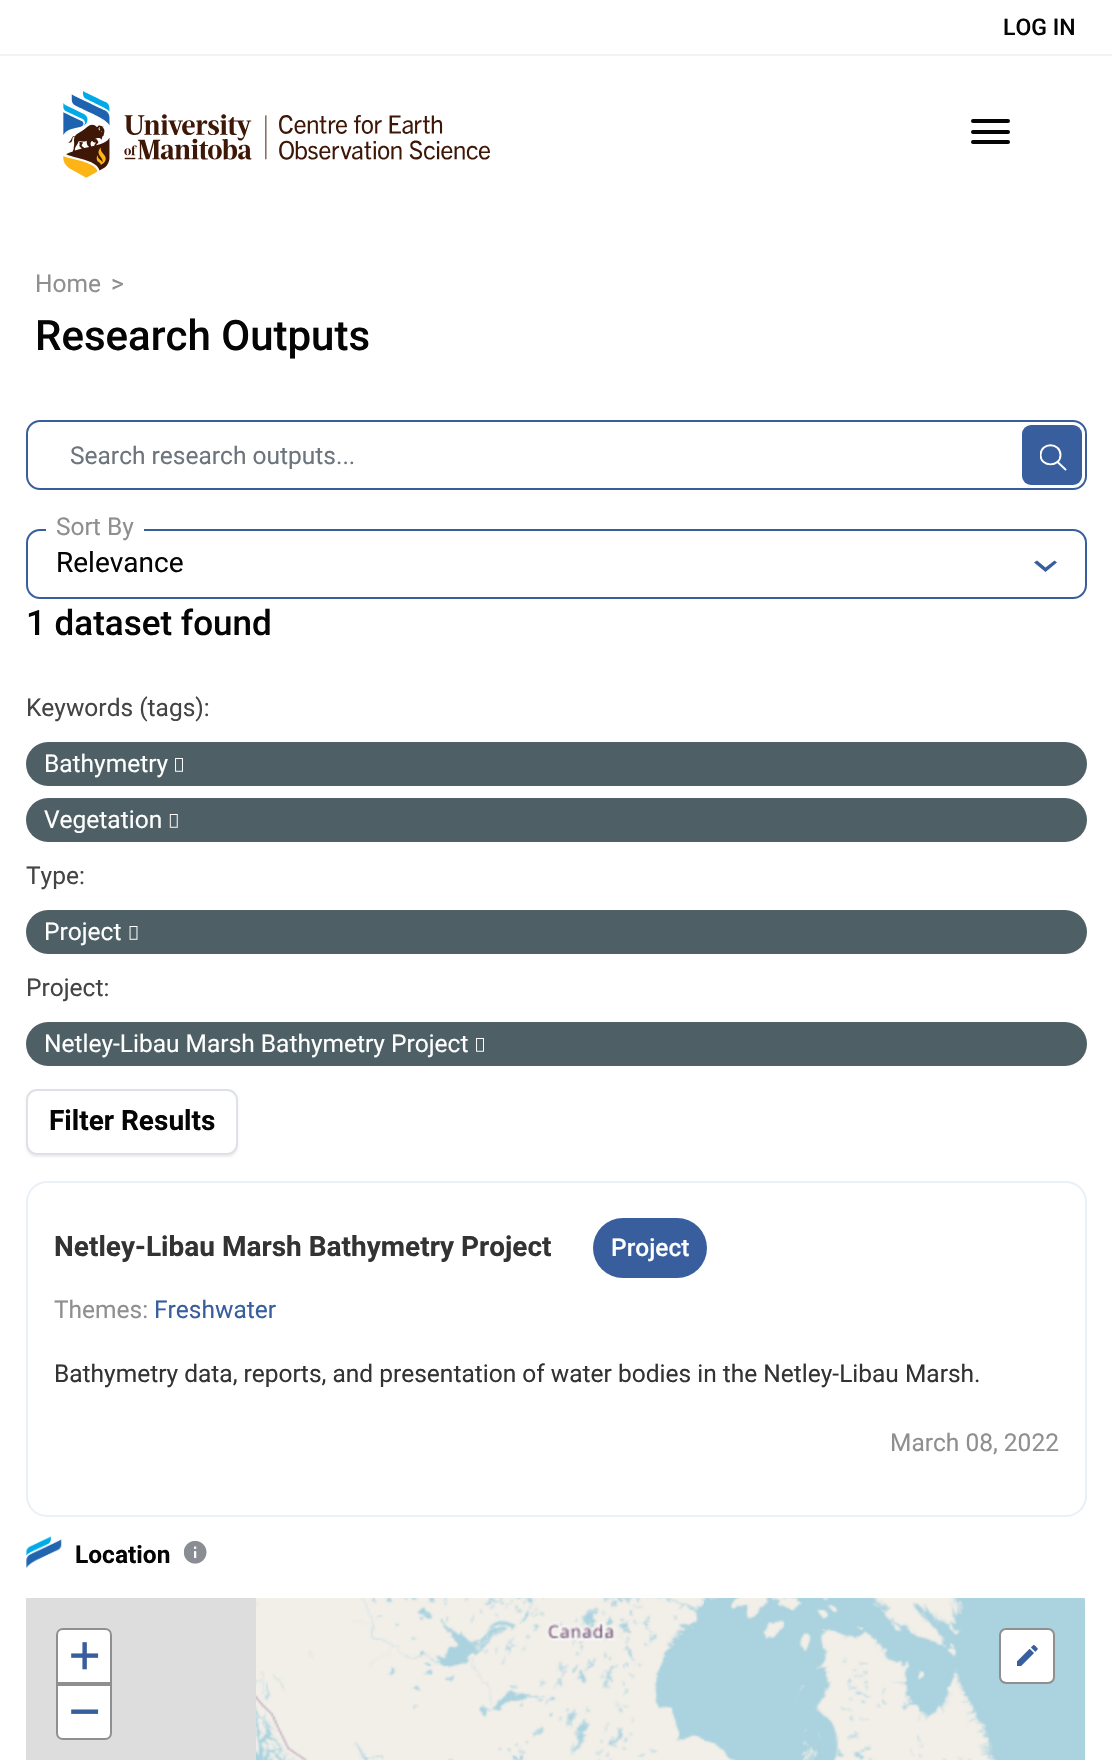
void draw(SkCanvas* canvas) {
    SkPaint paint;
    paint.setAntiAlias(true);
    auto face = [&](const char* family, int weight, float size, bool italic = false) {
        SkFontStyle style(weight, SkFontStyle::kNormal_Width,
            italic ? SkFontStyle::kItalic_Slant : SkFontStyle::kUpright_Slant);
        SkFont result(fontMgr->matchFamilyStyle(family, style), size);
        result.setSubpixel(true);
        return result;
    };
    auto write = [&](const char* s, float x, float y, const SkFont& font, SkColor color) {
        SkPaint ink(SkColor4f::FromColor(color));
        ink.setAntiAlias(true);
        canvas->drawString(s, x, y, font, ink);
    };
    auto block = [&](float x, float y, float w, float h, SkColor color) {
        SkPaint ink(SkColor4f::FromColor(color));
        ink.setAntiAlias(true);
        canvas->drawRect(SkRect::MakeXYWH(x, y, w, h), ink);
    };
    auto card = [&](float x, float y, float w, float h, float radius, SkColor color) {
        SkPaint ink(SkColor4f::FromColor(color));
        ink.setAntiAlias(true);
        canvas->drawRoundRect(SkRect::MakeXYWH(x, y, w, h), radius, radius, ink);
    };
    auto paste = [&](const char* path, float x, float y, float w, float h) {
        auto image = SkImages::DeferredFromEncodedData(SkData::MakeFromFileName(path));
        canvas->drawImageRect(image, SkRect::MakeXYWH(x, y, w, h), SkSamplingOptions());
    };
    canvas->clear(SK_ColorWHITE);
    block(0, 54, 1112, 2, SkColorSetRGB(242, 242, 242));
    auto kFont1 = face("Roboto", 500, 23);
    write("LOG IN", 1003, 35, kFont1, SkColorSetRGB(5, 5, 5));
    paste("pic1.png", 63, 91, 427, 87);
    card(971, 119, 39, 4, 2, SkColorSetRGB(5, 5, 5));
    card(971, 130, 39, 4, 2, SkColorSetRGB(5, 5, 5));
    card(971, 140, 39, 4, 2, SkColorSetRGB(5, 5, 5));
    auto kFont2 = face("Roboto", 400, 24.5f);
    write("Home", 35, 292, kFont2, SkColorSetRGB(143, 143, 143));
    write(">", 111, 292, kFont2, SkColorSetRGB(143, 143, 143));
    auto kFont3 = face("Roboto", 500, 42);
    write("Research Outputs", 35, 350, kFont3, SkColorSetRGB(5, 5, 5));
    paint.setStyle(SkPaint::kStroke_Style);
    paint.setStrokeWidth(2);
    paint.setColor(SkColorSetRGB(56, 94, 157));
    canvas->drawRoundRect(SkRect::MakeXYWH(27, 421, 1059, 68), 13, 13, paint);
    write("Search research outputs...", 70, 464, kFont2, SkColorSetRGB(108, 117, 125));
    card(1022, 425, 60, 60, 9, SkColorSetRGB(56, 94, 157));
    canvas->save();
    canvas->clipRect(SkRect::MakeXYWH(1040, 443, 28, 28));
    paint.setStrokeWidth(1.9f);
    paint.setStrokeCap(SkPaint::kRound_Cap);
    paint.setColor(SK_ColorWHITE);
    canvas->drawPath(SkPathBuilder().moveTo(1060.5f, 455).cubicTo(1060.5f, 467.5f, 1040.5f, 467.5f, 1040.5f, 455).cubicTo(1040.5f, 442, 1060.5f, 442, 1060.5f, 455).close().detach(), paint);
    canvas->restore();
    canvas->drawPath(SkPathBuilder().moveTo(1057.5f, 462).lineTo(1065.5f, 469.5f).detach(), paint);
    paint.setStrokeWidth(2);
    paint.setStrokeCap(SkPaint::kButt_Cap);
    paint.setColor(SkColorSetRGB(56, 94, 157));
    canvas->drawRoundRect(SkRect::MakeXYWH(27, 530, 1059, 68), 13, 13, paint);
    block(46, 529, 98, 2, SK_ColorWHITE);
    write("Sort By", 56, 535, kFont2, SkColorSetRGB(143, 143, 143));
    auto kFont4 = face("Roboto", 400, 28);
    write("Relevance", 56, 572, kFont4, SkColorSetRGB(5, 5, 5));
    paint.setStyle(SkPaint::kFill_Style);
    canvas->drawPath(SkPathBuilder().moveTo(1034, 562.5f).lineTo(1037, 560.5f).lineTo(1045.5f, 567.5f).lineTo(1054.5f, 560.5f).lineTo(1057, 562.5f).lineTo(1045.5f, 572).close().detach(), paint);
    auto kFont5 = face("Roboto", 500, 35);
    write("1 dataset found", 26, 635, kFont5, SkColorSetRGB(5, 5, 5));
    write("Keywords (tags):", 26, 716, kFont2, SkColorSetRGB(68, 68, 68));
    card(26, 742, 1061, 44, 22, SkColorSetRGB(78, 95, 101));
    write("Bathymetry", 44, 772, kFont2, SK_ColorWHITE);
    paste("pic2.png", 175, 758, 8, 14);
    card(26, 798, 1061, 44, 22, SkColorSetRGB(78, 95, 101));
    write("Vegetation", 44, 828, kFont2, SK_ColorWHITE);
    paste("pic3.png", 169, 814, 9, 14);
    write("Type:", 26, 884, kFont2, SkColorSetRGB(68, 68, 68));
    card(26, 910, 1061, 44, 22, SkColorSetRGB(78, 95, 101));
    write("Project", 44, 940, kFont2, SK_ColorWHITE);
    paste("pic4.png", 129, 926, 9, 14);
    write("Project:", 26, 996, kFont2, SkColorSetRGB(68, 68, 68));
    card(26, 1022, 1061, 44, 22, SkColorSetRGB(78, 95, 101));
    write("Netley-Libau Marsh Bathymetry Project", 44, 1052, kFont2, SK_ColorWHITE);
    paste("pic2.png", 476, 1038, 8, 14);
    paint.setColor(SkColorSetARGB(18, 0, 0, 0));
    paint.setMaskFilter(SkMaskFilter::MakeBlur(kNormal_SkBlurStyle, 1));
    canvas->drawRoundRect(SkRect::MakeXYWH(26, 1090, 212, 67), 11, 11, paint);
    paint.setMaskFilter(nullptr);
    paint.setColor(SK_ColorWHITE);
    canvas->drawRoundRect(SkRect::MakeXYWH(27, 1090, 210, 64), 10, 10, paint);
    paint.setStyle(SkPaint::kStroke_Style);
    paint.setColor(SkColorSetRGB(222, 226, 230));
    canvas->drawRoundRect(SkRect::MakeXYWH(27, 1090, 210, 64), 10, 10, paint);
    auto kFont6 = face("Roboto", 700, 28);
    write("Filter Results", 49, 1130, kFont6, SkColorSetRGB(5, 5, 5));
    paint.setColor(SkColorSetRGB(233, 240, 247));
    canvas->drawRoundRect(SkRect::MakeXYWH(27, 1182, 1059, 334), 20, 20, paint);
    write("Netley-Libau Marsh Bathymetry Project", 54, 1256, kFont6, SkColorSetRGB(51, 51, 51));
    card(593, 1218, 114, 60, 30, SkColorSetRGB(56, 94, 157));
    auto kFont7 = face("Roboto", 500, 24.5f);
    write("Project", 611, 1256, kFont7, SK_ColorWHITE);
    write("Themes:", 54, 1318, kFont2, SkColorSetRGB(143, 143, 143));
    write("Freshwater", 154, 1318, kFont2, SkColorSetRGB(56, 94, 157));
    write("Bathymetry data, reports, and presentation of water bodies in the Netley-Libau Marsh.", 54, 1382, kFont2, SkColorSetRGB(51, 51, 51));
    write("March 08, 2022", 890, 1451, kFont2, SkColorSetRGB(143, 143, 143));
    paste("pic5.png", 26, 1536, 36, 32);
    auto kFont8 = face("Roboto", 700, 24.5f);
    write("Location", 75, 1563, kFont8, SkColorSetRGB(5, 5, 5));
    paste("pic6.png", 184, 1540, 23, 24);
    block(26, 1598, 230, 162, SkColorSetRGB(221, 221, 221));
    paint.setStyle(SkPaint::kFill_Style);
    paint.setColor(SK_ColorWHITE);
    canvas->drawPath(SkPathBuilder().moveTo(63, 1629).lineTo(105, 1629).cubicTo(108.5f, 1629, 111, 1631.5f, 111, 1635).lineTo(111, 1683).lineTo(57, 1683).lineTo(57, 1635).cubicTo(57, 1631.5f, 59.5f, 1629, 63, 1629).close().detach(), paint);
    paint.setStyle(SkPaint::kStroke_Style);
    paint.setColor(SkColorSetRGB(143, 143, 143));
    canvas->drawPath(SkPathBuilder().moveTo(63, 1629).lineTo(105, 1629).cubicTo(108.5f, 1629, 111, 1631.5f, 111, 1635).lineTo(111, 1683).lineTo(57, 1683).lineTo(57, 1635).cubicTo(57, 1631.5f, 59.5f, 1629, 63, 1629).close().detach(), paint);
    auto kFont9 = face("DejaVu Sans Mono", 400, 52);
    write("+", 69, 1672, kFont9, SkColorSetRGB(56, 94, 157));
    paint.setStyle(SkPaint::kFill_Style);
    paint.setColor(SK_ColorWHITE);
    canvas->drawPath(SkPathBuilder().moveTo(57, 1685).lineTo(111, 1685).lineTo(111, 1733).cubicTo(111, 1736.5f, 108.5f, 1739, 105, 1739).lineTo(63, 1739).cubicTo(59.5f, 1739, 57, 1736.5f, 57, 1733).close().detach(), paint);
    paint.setStyle(SkPaint::kStroke_Style);
    paint.setColor(SkColorSetRGB(143, 143, 143));
    canvas->drawPath(SkPathBuilder().moveTo(57, 1685).lineTo(111, 1685).lineTo(111, 1733).cubicTo(111, 1736.5f, 108.5f, 1739, 105, 1739).lineTo(63, 1739).cubicTo(59.5f, 1739, 57, 1736.5f, 57, 1733).close().detach(), paint);
    write("−", 69, 1728, kFont9, SkColorSetRGB(56, 94, 157));
    paste("pic9.png", 704, 1598, 381, 162);
    card(1001, 1629, 53, 53, 5, SK_ColorWHITE);
    paste("pic7.png", 1017, 1645, 21, 21);
    canvas->drawRoundRect(SkRect::MakeXYWH(1000, 1629, 54, 54), 6, 6, paint);
    paste("pic8.png", 256, 1598, 448, 162);
}
